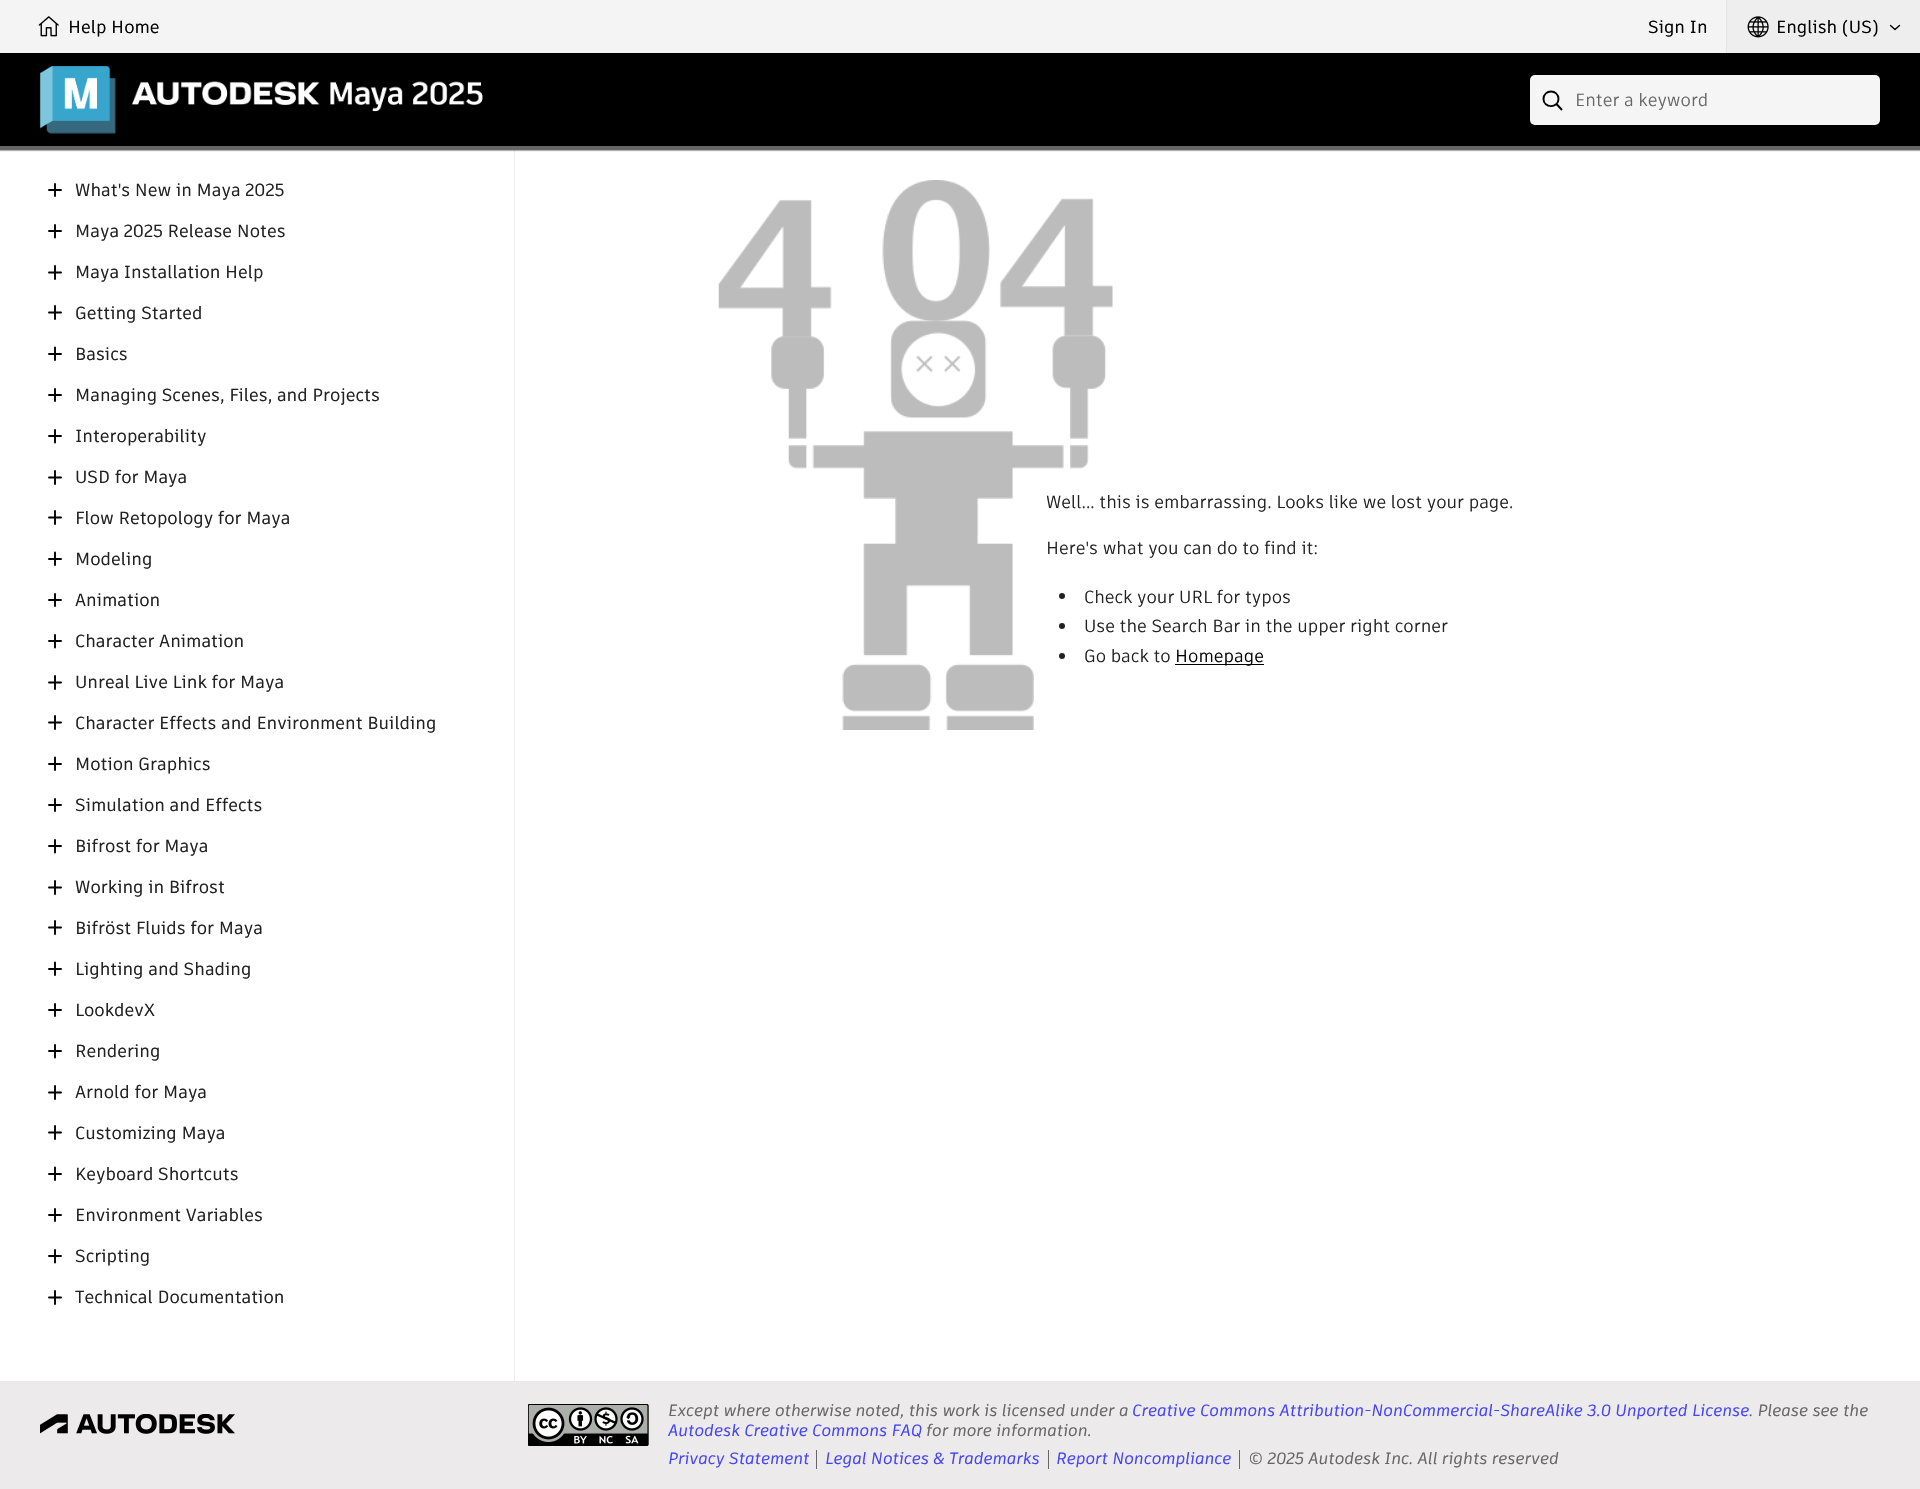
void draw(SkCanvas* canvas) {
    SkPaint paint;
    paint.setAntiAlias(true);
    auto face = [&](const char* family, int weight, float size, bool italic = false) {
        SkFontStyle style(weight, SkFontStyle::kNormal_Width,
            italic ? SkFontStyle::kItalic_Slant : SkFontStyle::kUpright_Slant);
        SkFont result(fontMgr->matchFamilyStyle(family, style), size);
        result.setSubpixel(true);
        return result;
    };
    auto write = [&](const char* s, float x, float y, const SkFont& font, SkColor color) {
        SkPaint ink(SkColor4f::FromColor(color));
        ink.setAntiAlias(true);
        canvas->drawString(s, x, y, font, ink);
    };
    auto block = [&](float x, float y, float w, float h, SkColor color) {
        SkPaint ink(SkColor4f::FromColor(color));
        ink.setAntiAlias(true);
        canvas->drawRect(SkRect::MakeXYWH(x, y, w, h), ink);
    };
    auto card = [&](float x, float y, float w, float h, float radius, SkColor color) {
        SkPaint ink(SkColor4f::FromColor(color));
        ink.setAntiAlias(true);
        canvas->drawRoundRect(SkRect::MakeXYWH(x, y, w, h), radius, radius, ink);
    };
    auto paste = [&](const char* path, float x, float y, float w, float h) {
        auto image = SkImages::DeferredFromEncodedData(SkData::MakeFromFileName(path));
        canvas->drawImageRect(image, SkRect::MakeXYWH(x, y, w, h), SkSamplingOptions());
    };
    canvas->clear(SK_ColorWHITE);
    block(514, 150, 1, 1231, SkColorSetRGB(238, 238, 238));
    paint.setColor(SkColorSetARGB(77, 0, 0, 0));
    paint.setMaskFilter(SkMaskFilter::MakeBlur(kNormal_SkBlurStyle, 0.5f));
    canvas->drawRect(SkRect::MakeXYWH(0, 54, 1920, 97), paint);
    paint.setMaskFilter(nullptr);
    block(0, 0, 1726, 53, SkColorSetRGB(244, 244, 244));
    paste("pic1.png", 38, 16, 21, 21);
    auto kFont1 = face("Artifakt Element", 500, 17.5f);
    write("Help Home", 68, 33, kFont1, SK_ColorBLACK);
    write("Sign In", 1648, 33, kFont1, SK_ColorBLACK);
    block(1727, 0, 193, 53, SkColorSetRGB(238, 238, 238));
    block(1726, 0, 1, 53, SkColorSetRGB(228, 228, 228));
    paste("pic2.png", 1747, 16, 22, 22);
    write("English (US)", 1776, 33, kFont1, SK_ColorBLACK);
    paint.setStyle(SkPaint::kStroke_Style);
    paint.setStrokeWidth(1.4f);
    paint.setStrokeCap(SkPaint::kRound_Cap);
    paint.setStrokeJoin(SkPaint::kRound_Join);
    paint.setColor(SK_ColorBLACK);
    canvas->drawPath(SkPathBuilder().moveTo(1899.5f, 25.5f).lineTo(1895, 29.5f).lineTo(1890.5f, 25.5f).detach(), paint);
    block(0, 53, 1920, 93, SK_ColorBLACK);
    block(0, 146, 1920, 4, SkColorSetRGB(102, 102, 102));
    paste("pic3.png", 40, 66, 443, 68);
    card(1530, 75, 350, 50, 5, SkColorSetRGB(245, 245, 245));
    paint.setStrokeWidth(1.9f);
    paint.setStrokeCap(SkPaint::kButt_Cap);
    paint.setStrokeJoin(SkPaint::kMiter_Join);
    canvas->drawPath(SkPathBuilder().moveTo(1556.5f, 104).lineTo(1562, 110).moveTo(1558.5f, 99).cubicTo(1558.5f, 108.5f, 1543.5f, 108.5f, 1543.5f, 99).cubicTo(1543.5f, 89, 1558.5f, 89, 1558.5f, 99).close().detach(), paint);
    auto kFont2 = face("Artifakt Element", 400, 17.5f);
    write("Enter a keyword", 1575, 106, kFont2, SkColorSetRGB(102, 102, 102));
    paint.setStrokeCap(SkPaint::kRound_Cap);
    canvas->drawPath(SkPathBuilder().moveTo(55, 184).lineTo(55, 196).moveTo(49, 190).lineTo(61, 190).detach(), paint);
    write("What's New in Maya 2025", 75, 196, kFont1, SkColorSetRGB(33, 33, 33));
    canvas->drawPath(SkPathBuilder().moveTo(55, 225).lineTo(55, 237.5f).moveTo(49, 231).lineTo(61, 231).detach(), paint);
    write("Maya 2025 Release Notes", 75, 237, kFont1, SkColorSetRGB(33, 33, 33));
    canvas->drawPath(SkPathBuilder().moveTo(55, 266).lineTo(55, 279).moveTo(49, 272.5f).lineTo(61, 272.5f).detach(), paint);
    write("Maya Installation Help", 75, 278, kFont1, SkColorSetRGB(33, 33, 33));
    canvas->drawPath(SkPathBuilder().moveTo(55, 306).lineTo(55, 319).moveTo(49, 312.5f).lineTo(61, 312.5f).detach(), paint);
    write("Getting Started", 75, 319, kFont1, SkColorSetRGB(33, 33, 33));
    canvas->drawPath(SkPathBuilder().moveTo(55, 347.5f).lineTo(55, 360).moveTo(49, 354).lineTo(61, 354).detach(), paint);
    write("Basics", 75, 360, kFont1, SkColorSetRGB(33, 33, 33));
    canvas->drawPath(SkPathBuilder().moveTo(55, 389).lineTo(55, 401).moveTo(49, 395).lineTo(61, 395).detach(), paint);
    write("Managing Scenes, Files, and Projects", 75, 401, kFont1, SkColorSetRGB(33, 33, 33));
    canvas->drawPath(SkPathBuilder().moveTo(55, 430).lineTo(55, 442.5f).moveTo(49, 436).lineTo(61, 436).detach(), paint);
    write("Interoperability", 75, 442, kFont1, SkColorSetRGB(33, 33, 33));
    canvas->drawPath(SkPathBuilder().moveTo(55, 471).lineTo(55, 484).moveTo(49, 477.5f).lineTo(61, 477.5f).detach(), paint);
    write("USD for Maya", 75, 483, kFont1, SkColorSetRGB(33, 33, 33));
    canvas->drawPath(SkPathBuilder().moveTo(55, 511).lineTo(55, 524).moveTo(49, 517.5f).lineTo(61, 517.5f).detach(), paint);
    write("Flow Retopology for Maya", 75, 524, kFont1, SkColorSetRGB(33, 33, 33));
    canvas->drawPath(SkPathBuilder().moveTo(55, 552.5f).lineTo(55, 565).moveTo(49, 559).lineTo(61, 559).detach(), paint);
    write("Modeling", 75, 565, kFont1, SkColorSetRGB(33, 33, 33));
    canvas->drawPath(SkPathBuilder().moveTo(55, 594).lineTo(55, 606).moveTo(49, 600).lineTo(61, 600).detach(), paint);
    write("Animation", 75, 606, kFont1, SkColorSetRGB(33, 33, 33));
    canvas->drawPath(SkPathBuilder().moveTo(55, 635).lineTo(55, 647.5f).moveTo(49, 641).lineTo(61, 641).detach(), paint);
    write("Character Animation", 75, 647, kFont1, SkColorSetRGB(33, 33, 33));
    canvas->drawPath(SkPathBuilder().moveTo(55, 676).lineTo(55, 689).moveTo(49, 682.5f).lineTo(61, 682.5f).detach(), paint);
    write("Unreal Live Link for Maya", 75, 688, kFont1, SkColorSetRGB(33, 33, 33));
    canvas->drawPath(SkPathBuilder().moveTo(55, 716).lineTo(55, 729).moveTo(49, 722.5f).lineTo(61, 722.5f).detach(), paint);
    write("Character Effects and Environment Building", 75, 729, kFont1, SkColorSetRGB(33, 33, 33));
    canvas->drawPath(SkPathBuilder().moveTo(55, 757.5f).lineTo(55, 770).moveTo(49, 764).lineTo(61, 764).detach(), paint);
    write("Motion Graphics", 75, 770, kFont1, SkColorSetRGB(33, 33, 33));
    canvas->drawPath(SkPathBuilder().moveTo(55, 799).lineTo(55, 811).moveTo(49, 805).lineTo(61, 805).detach(), paint);
    write("Simulation and Effects", 75, 811, kFont1, SkColorSetRGB(33, 33, 33));
    canvas->drawPath(SkPathBuilder().moveTo(55, 840).lineTo(55, 852.5f).moveTo(49, 846).lineTo(61, 846).detach(), paint);
    write("Bifrost for Maya", 75, 852, kFont1, SkColorSetRGB(33, 33, 33));
    canvas->drawPath(SkPathBuilder().moveTo(55, 881).lineTo(55, 894).moveTo(49, 887.5f).lineTo(61, 887.5f).detach(), paint);
    write("Working in Bifrost", 75, 893, kFont1, SkColorSetRGB(33, 33, 33));
    canvas->drawPath(SkPathBuilder().moveTo(55, 921).lineTo(55, 934).moveTo(49, 927.5f).lineTo(61, 927.5f).detach(), paint);
    write("Bifröst Fluids for Maya", 75, 934, kFont1, SkColorSetRGB(33, 33, 33));
    canvas->drawPath(SkPathBuilder().moveTo(55, 962.5f).lineTo(55, 975).moveTo(49, 969).lineTo(61, 969).detach(), paint);
    write("Lighting and Shading", 75, 975, kFont1, SkColorSetRGB(33, 33, 33));
    canvas->drawPath(SkPathBuilder().moveTo(55, 1004).lineTo(55, 1016).moveTo(49, 1010).lineTo(61, 1010).detach(), paint);
    write("LookdevX", 75, 1016, kFont1, SkColorSetRGB(33, 33, 33));
    canvas->drawPath(SkPathBuilder().moveTo(55, 1045).lineTo(55, 1057.5f).moveTo(49, 1051).lineTo(61, 1051).detach(), paint);
    write("Rendering", 75, 1057, kFont1, SkColorSetRGB(33, 33, 33));
    canvas->drawPath(SkPathBuilder().moveTo(55, 1086).lineTo(55, 1099).moveTo(49, 1092.5f).lineTo(61, 1092.5f).detach(), paint);
    write("Arnold for Maya", 75, 1098, kFont1, SkColorSetRGB(33, 33, 33));
    canvas->drawPath(SkPathBuilder().moveTo(55, 1126).lineTo(55, 1139).moveTo(49, 1132.5f).lineTo(61, 1132.5f).detach(), paint);
    write("Customizing Maya", 75, 1139, kFont1, SkColorSetRGB(33, 33, 33));
    canvas->drawPath(SkPathBuilder().moveTo(55, 1167.5f).lineTo(55, 1180).moveTo(49, 1174).lineTo(61, 1174).detach(), paint);
    write("Keyboard Shortcuts", 75, 1180, kFont1, SkColorSetRGB(33, 33, 33));
    canvas->drawPath(SkPathBuilder().moveTo(55, 1209).lineTo(55, 1221).moveTo(49, 1215).lineTo(61, 1215).detach(), paint);
    write("Environment Variables", 75, 1221, kFont1, SkColorSetRGB(33, 33, 33));
    canvas->drawPath(SkPathBuilder().moveTo(55, 1250).lineTo(55, 1262.5f).moveTo(49, 1256).lineTo(61, 1256).detach(), paint);
    write("Scripting", 75, 1262, kFont1, SkColorSetRGB(33, 33, 33));
    canvas->drawPath(SkPathBuilder().moveTo(55, 1291).lineTo(55, 1304).moveTo(49, 1297.5f).lineTo(61, 1297.5f).detach(), paint);
    write("Technical Documentation", 75, 1303, kFont1, SkColorSetRGB(33, 33, 33));
    paste("pic4.png", 718, 180, 395, 550);
    write("Well... this is embarrassing. Looks like we lost your page.", 1046, 508, kFont2, SkColorSetRGB(33, 33, 33));
    write("Here's what you can do to find it:", 1046, 554, kFont2, SkColorSetRGB(33, 33, 33));
    paint.setStyle(SkPaint::kFill_Style);
    paint.setColor(SkColorSetRGB(33, 33, 33));
    canvas->drawCircle(1062, 596, 3, paint);
    write("Check your URL for typos", 1084, 603, kFont2, SkColorSetRGB(33, 33, 33));
    canvas->drawCircle(1062, 626, 3, paint);
    write("Use the Search Bar in the upper right corner", 1084, 632, kFont2, SkColorSetRGB(33, 33, 33));
    canvas->drawCircle(1062, 656, 3, paint);
    write("Go back to", 1084, 662, kFont2, SkColorSetRGB(33, 33, 33));
    block(1175, 664, 89, 1, SK_ColorBLACK);
    write("Homepage", 1175, 662, kFont2, SK_ColorBLACK);
    block(0, 1381, 1920, 108, SkColorSetRGB(236, 234, 234));
    paste("pic5.png", 40, 1414, 195, 20);
    paste("pic6.png", 528, 1404, 121, 42);
    auto kFont3 = face("Artifakt Element", 500, 16.25f, true);
    write("Except where otherwise noted, this work is licensed under a", 668, 1416, kFont3, SkColorSetRGB(102, 102, 102));
    write("Creative Commons Attribution-NonCommercial-ShareAlike 3.0 Unported License", 1132, 1416, kFont3, SkColorSetRGB(68, 68, 248));
    write(". Please see the", 1749, 1416, kFont3, SkColorSetRGB(102, 102, 102));
    write("Autodesk Creative Commons FAQ", 668, 1436, kFont3, SkColorSetRGB(68, 68, 248));
    write("for more information.", 926, 1436, kFont3, SkColorSetRGB(102, 102, 102));
    write("Privacy Statement", 668, 1464, kFont3, SkColorSetRGB(68, 68, 248));
    block(816, 1450, 1, 19, SkColorSetRGB(102, 102, 102));
    write("Legal Notices & Trademarks", 825, 1464, kFont3, SkColorSetRGB(68, 68, 248));
    block(1048, 1450, 1, 19, SkColorSetRGB(102, 102, 102));
    write("Report Noncompliance", 1056, 1464, kFont3, SkColorSetRGB(68, 68, 248));
    block(1239, 1450, 1, 19, SkColorSetRGB(102, 102, 102));
    write("© 2025 Autodesk Inc. All rights reserved", 1248, 1464, kFont3, SkColorSetRGB(102, 102, 102));
}
